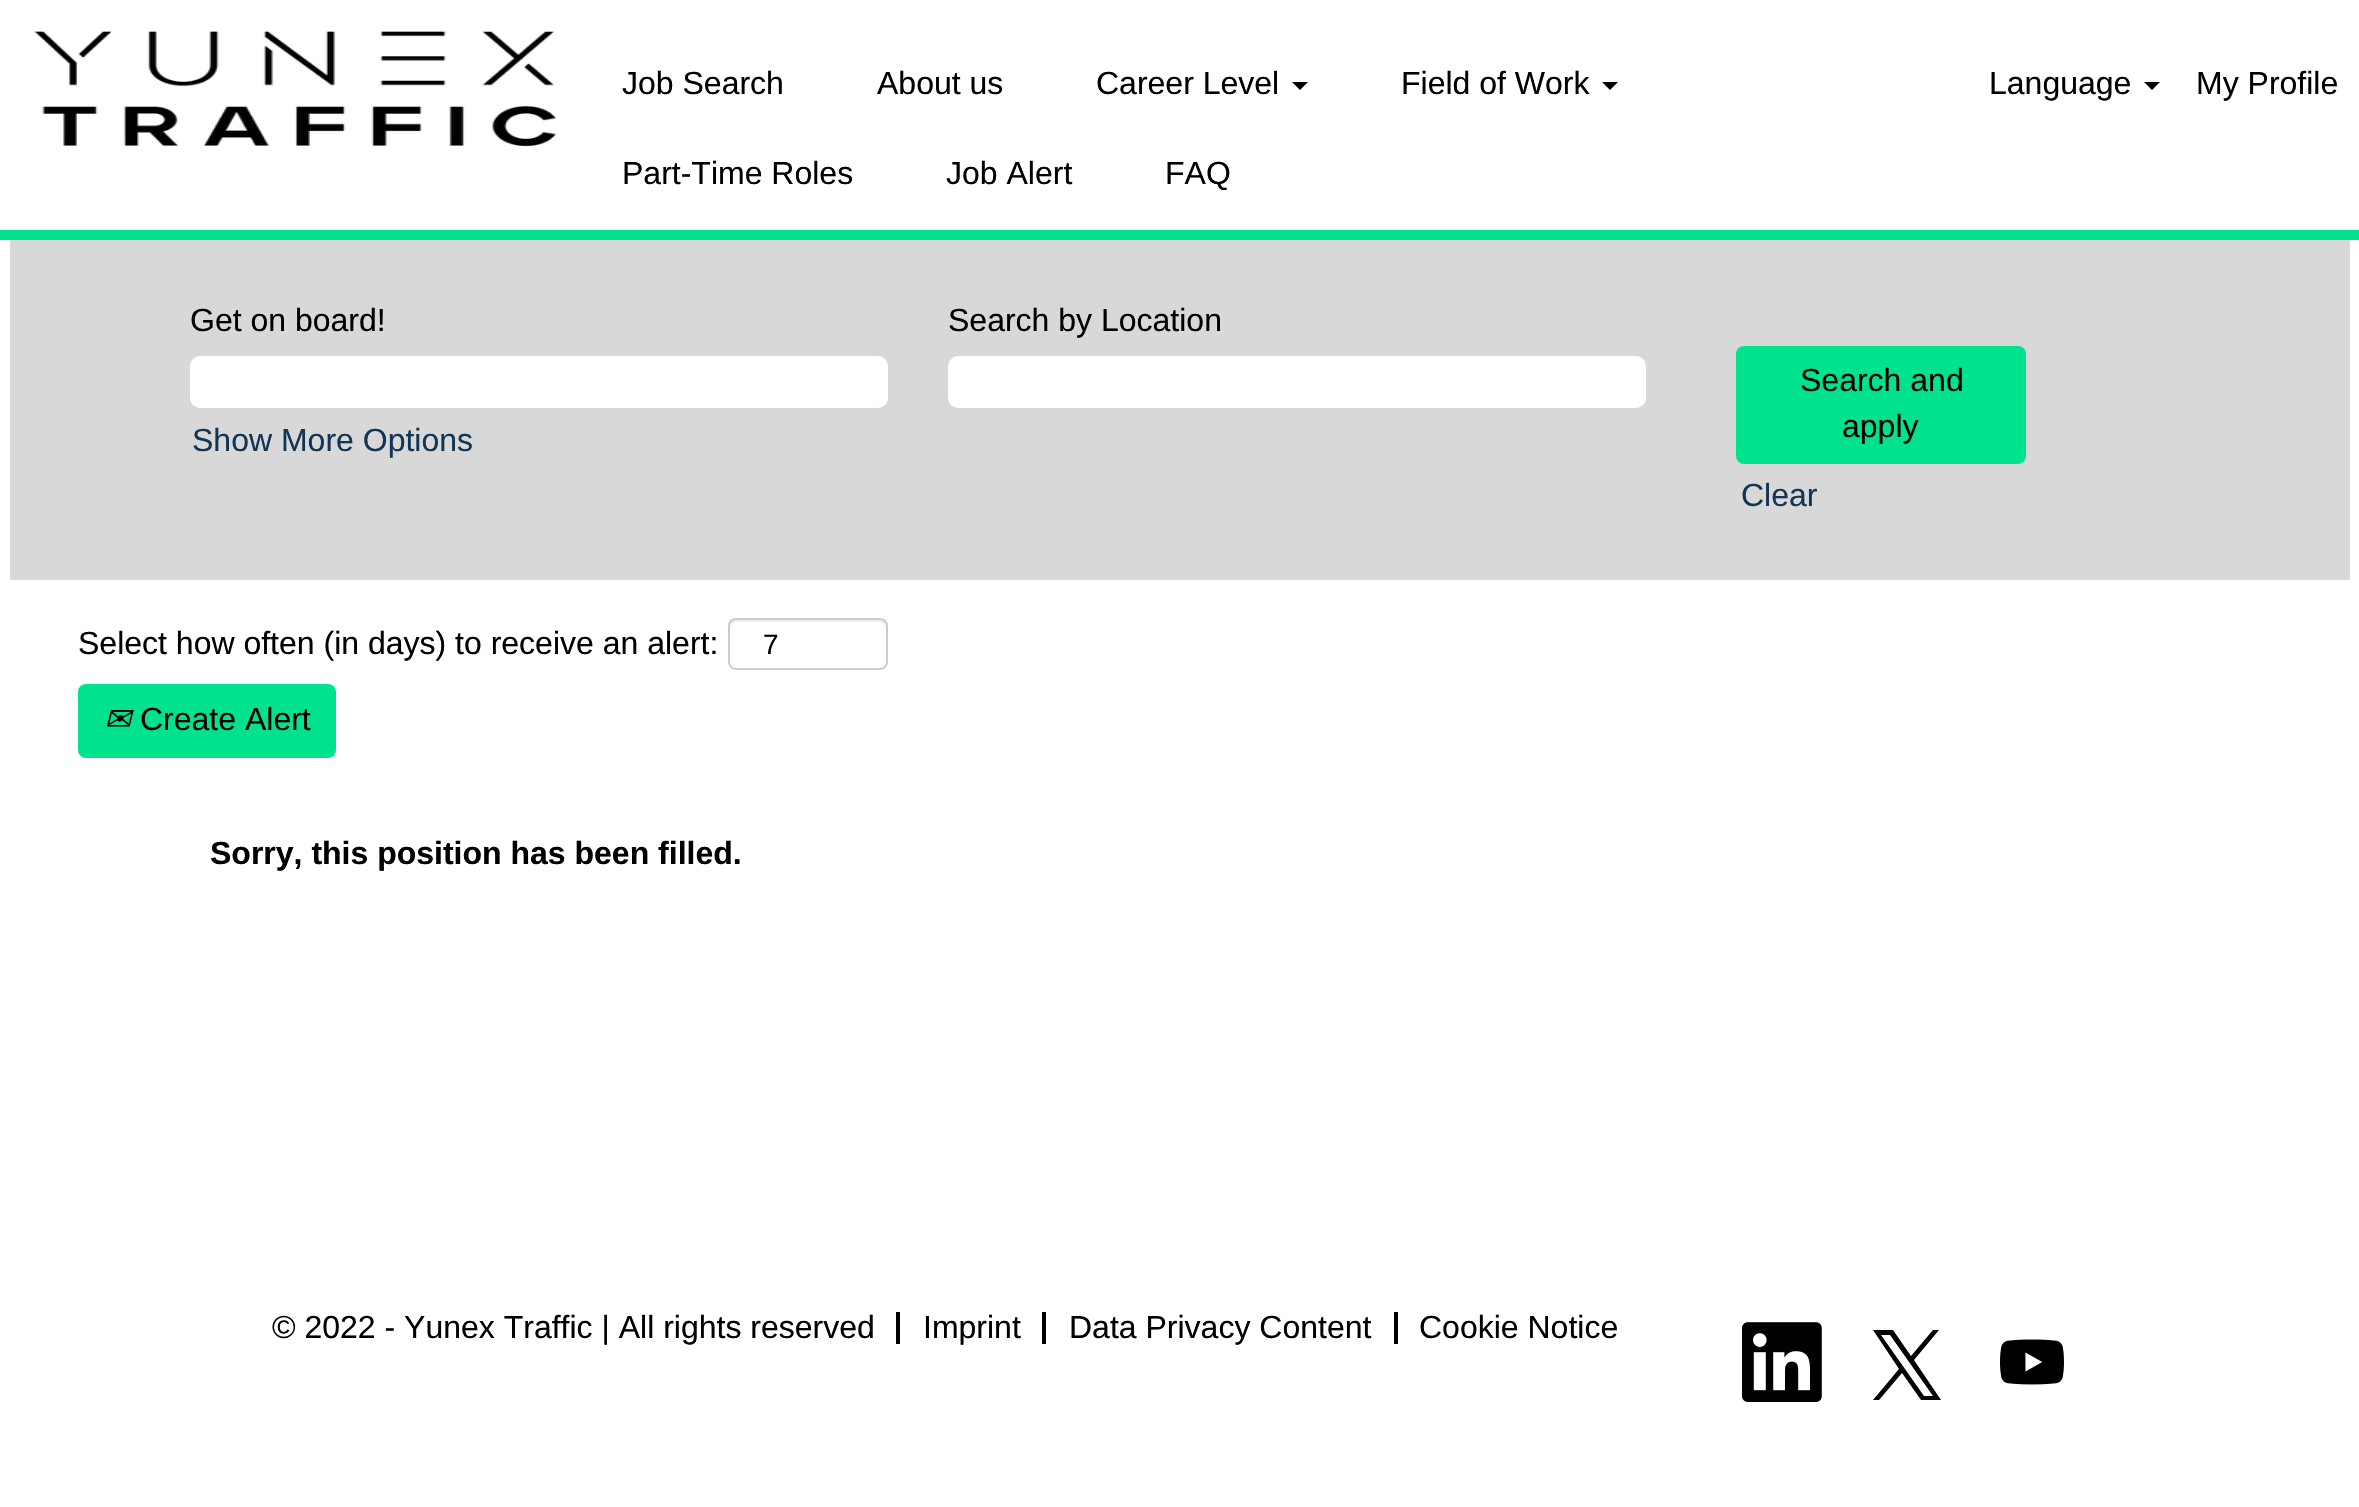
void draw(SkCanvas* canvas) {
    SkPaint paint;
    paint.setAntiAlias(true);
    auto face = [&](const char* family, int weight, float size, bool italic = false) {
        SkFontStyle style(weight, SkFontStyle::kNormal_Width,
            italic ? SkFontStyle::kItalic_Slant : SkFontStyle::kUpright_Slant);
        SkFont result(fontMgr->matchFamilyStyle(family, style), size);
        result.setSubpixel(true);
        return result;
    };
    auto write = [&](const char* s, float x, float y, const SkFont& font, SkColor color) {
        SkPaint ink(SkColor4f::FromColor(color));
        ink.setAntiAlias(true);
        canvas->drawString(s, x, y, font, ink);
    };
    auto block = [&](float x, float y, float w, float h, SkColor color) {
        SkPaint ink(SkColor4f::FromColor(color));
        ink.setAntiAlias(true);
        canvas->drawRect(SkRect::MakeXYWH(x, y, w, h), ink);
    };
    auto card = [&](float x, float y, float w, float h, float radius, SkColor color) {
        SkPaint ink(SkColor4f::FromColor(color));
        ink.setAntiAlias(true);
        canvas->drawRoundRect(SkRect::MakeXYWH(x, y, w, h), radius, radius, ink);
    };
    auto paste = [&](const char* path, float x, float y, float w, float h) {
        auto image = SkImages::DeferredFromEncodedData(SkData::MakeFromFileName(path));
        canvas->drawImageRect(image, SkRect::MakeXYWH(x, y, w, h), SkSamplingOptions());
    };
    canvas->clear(SK_ColorWHITE);
    paste("pic1.png", 34, 31, 523, 116);
    auto kFont1 = face("Liberation Sans", 400, 32);
    write("Job Search", 622, 94, kFont1, SK_ColorBLACK);
    write("About us", 877, 94, kFont1, SK_ColorBLACK);
    write("Career Level", 1096, 94, kFont1, SK_ColorBLACK);
    paint.setColor(SK_ColorBLACK);
    canvas->drawPath(SkPathBuilder().moveTo(1292, 82).lineTo(1308, 82).lineTo(1300, 90).close().detach(), paint);
    write("Field of Work", 1401, 94, kFont1, SK_ColorBLACK);
    canvas->drawPath(SkPathBuilder().moveTo(1602, 82).lineTo(1618, 82).lineTo(1610, 90).close().detach(), paint);
    write("Part-Time Roles", 622, 184, kFont1, SK_ColorBLACK);
    write("Job Alert", 946, 184, kFont1, SK_ColorBLACK);
    write("FAQ", 1165, 184, kFont1, SK_ColorBLACK);
    write("Language", 1989, 94, kFont1, SK_ColorBLACK);
    canvas->drawPath(SkPathBuilder().moveTo(2144, 82).lineTo(2160, 82).lineTo(2152, 90).close().detach(), paint);
    write("My Profile", 2196, 94, kFont1, SK_ColorBLACK);
    block(0, 230, 2359, 10, SkColorSetRGB(0, 227, 140));
    block(10, 240, 2340, 340, SkColorSetRGB(216, 216, 216));
    write("Get on board!", 190, 331, kFont1, SK_ColorBLACK);
    card(190, 356, 698, 52, 10, SK_ColorWHITE);
    write("Search by Location", 948, 331, kFont1, SK_ColorBLACK);
    card(948, 356, 698, 52, 10, SK_ColorWHITE);
    write("Show More Options", 192, 451, kFont1, SkColorSetRGB(18, 53, 86));
    card(1736, 346, 290, 118, 8, SkColorSetRGB(0, 227, 140));
    write("Search and", 1800, 391, kFont1, SK_ColorBLACK);
    write("apply", 1842, 437, kFont1, SK_ColorBLACK);
    write("Clear", 1741, 506, kFont1, SkColorSetRGB(18, 53, 86));
    write("Select how often (in days) to receive an alert:", 78, 654, kFont1, SK_ColorBLACK);
    paint.setColor(SkColorSetRGB(236, 236, 236));
    canvas->drawPath(SkPathBuilder().moveTo(736, 622).lineTo(880, 622).cubicTo(883, 622, 886, 625, 886, 628).lineTo(886, 626).cubicTo(886, 623, 883, 620, 880, 620).lineTo(736, 620).cubicTo(733, 620, 730, 623, 730, 626).lineTo(730, 628).cubicTo(730, 625, 733, 622, 736, 622).close().detach(), paint);
    paint.setStyle(SkPaint::kStroke_Style);
    paint.setStrokeWidth(2);
    paint.setColor(SkColorSetRGB(204, 204, 204));
    canvas->drawRoundRect(SkRect::MakeXYWH(729, 619, 158, 50), 7, 7, paint);
    auto kFont2 = face("Liberation Sans", 400, 28);
    write("7", 763, 654, kFont2, SK_ColorBLACK);
    card(78, 684, 258, 74, 8, SkColorSetRGB(0, 227, 140));
    auto kFont3 = face("DejaVu Sans", 400, 32, true);
    write("✉", 104, 730, kFont3, SK_ColorBLACK);
    write("Create Alert", 140, 730, kFont1, SK_ColorBLACK);
    auto kFont4 = face("Liberation Sans", 700, 32);
    write("Sorry, this position has been filled.", 210, 864, kFont4, SK_ColorBLACK);
    block(896, 1312, 4, 32, SK_ColorBLACK);
    write("© 2022 - Yunex Traffic | All rights reserved", 272, 1338, kFont1, SK_ColorBLACK);
    block(1042, 1312, 4, 32, SK_ColorBLACK);
    write("Imprint", 923, 1338, kFont1, SK_ColorBLACK);
    block(1394, 1312, 4, 32, SK_ColorBLACK);
    write("Data Privacy Content", 1069, 1338, kFont1, SK_ColorBLACK);
    write("Cookie Notice", 1419, 1338, kFont1, SK_ColorBLACK);
    paste("pic2.png", 1742, 1322, 80, 80);
    paint.setStyle(SkPaint::kFill_Style);
    paint.setColor(SK_ColorBLACK);
    canvas->drawPath(SkPathBuilder().moveTo(1914, 1360).lineTo(1939, 1330).lineTo(1933, 1330).lineTo(1911, 1356).lineTo(1893, 1330).lineTo(1873, 1330).lineTo(1899, 1369).lineTo(1873, 1400).lineTo(1879, 1400).lineTo(1902, 1373).lineTo(1921, 1400).lineTo(1941, 1400).close().moveTo(1905, 1369).lineTo(1881, 1335).lineTo(1890, 1335).lineTo(1933, 1396).lineTo(1924, 1396).close().detach(), paint);
    paste("pic3.png", 2000, 1339, 64, 46);
}
